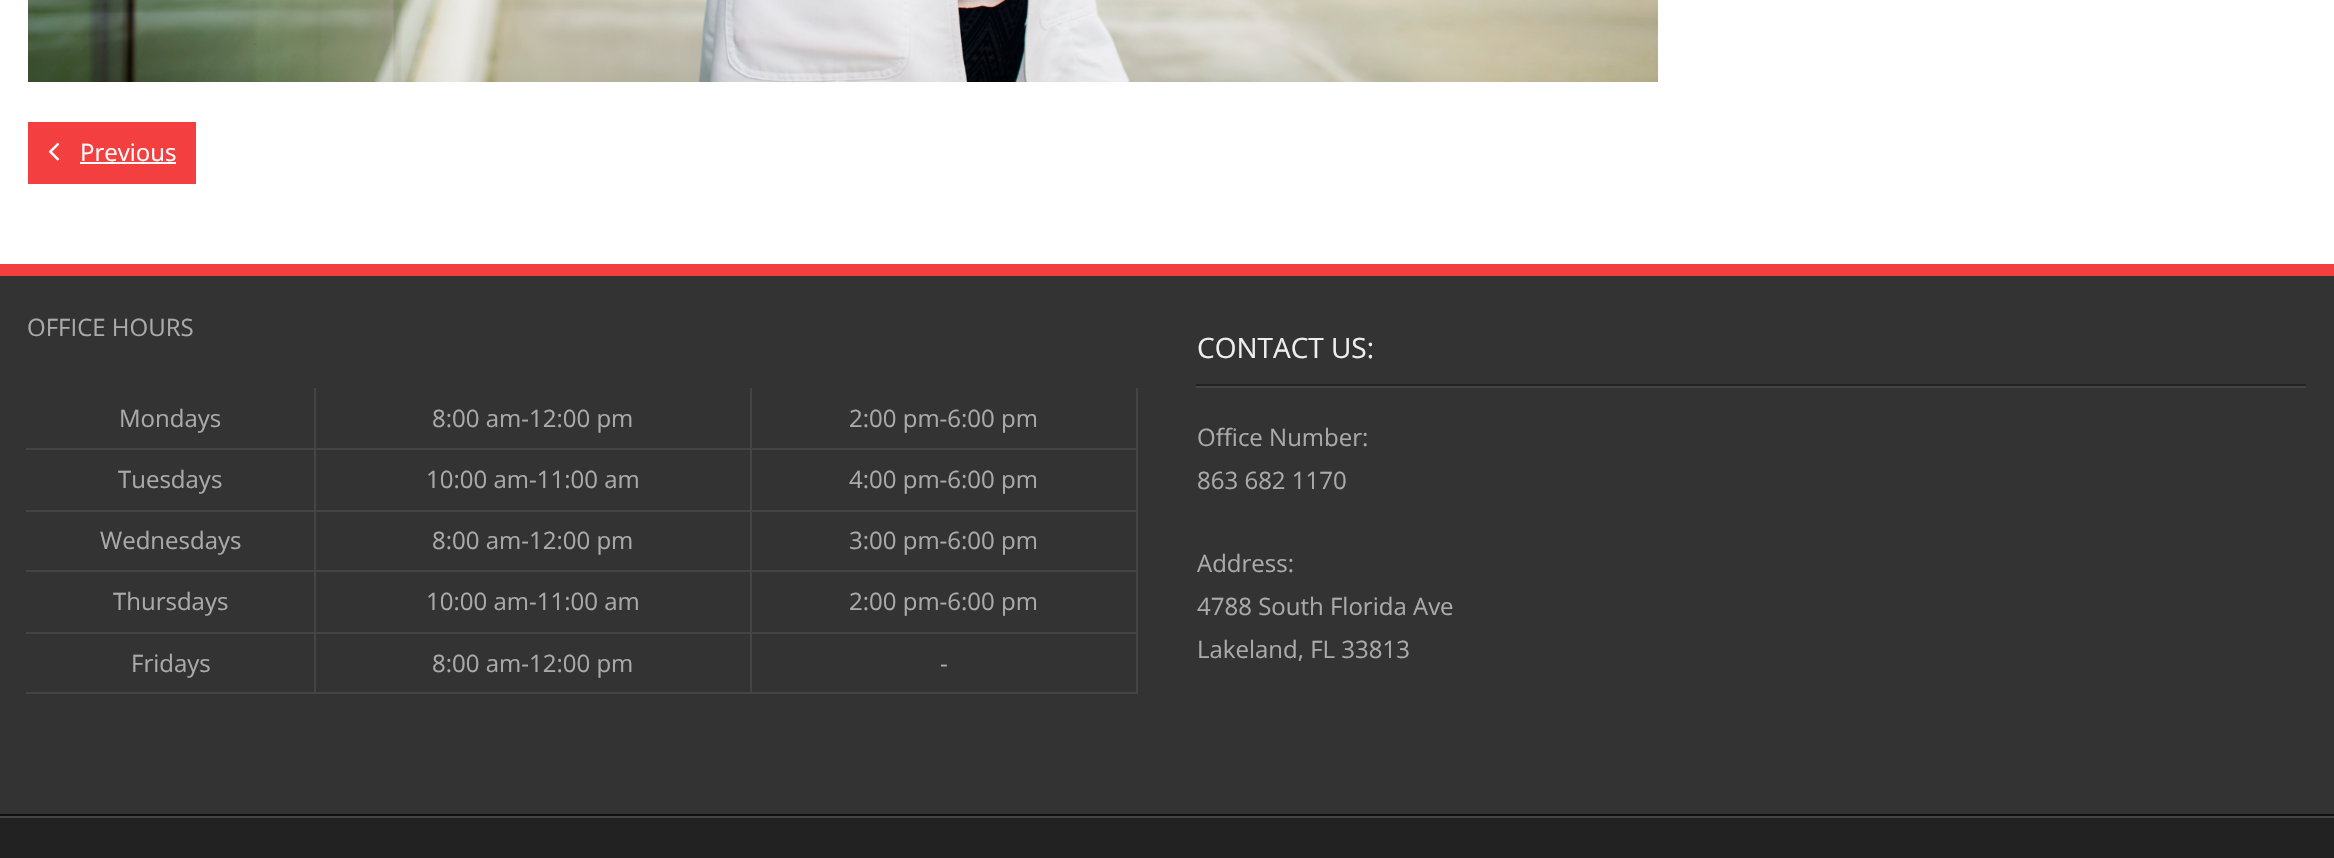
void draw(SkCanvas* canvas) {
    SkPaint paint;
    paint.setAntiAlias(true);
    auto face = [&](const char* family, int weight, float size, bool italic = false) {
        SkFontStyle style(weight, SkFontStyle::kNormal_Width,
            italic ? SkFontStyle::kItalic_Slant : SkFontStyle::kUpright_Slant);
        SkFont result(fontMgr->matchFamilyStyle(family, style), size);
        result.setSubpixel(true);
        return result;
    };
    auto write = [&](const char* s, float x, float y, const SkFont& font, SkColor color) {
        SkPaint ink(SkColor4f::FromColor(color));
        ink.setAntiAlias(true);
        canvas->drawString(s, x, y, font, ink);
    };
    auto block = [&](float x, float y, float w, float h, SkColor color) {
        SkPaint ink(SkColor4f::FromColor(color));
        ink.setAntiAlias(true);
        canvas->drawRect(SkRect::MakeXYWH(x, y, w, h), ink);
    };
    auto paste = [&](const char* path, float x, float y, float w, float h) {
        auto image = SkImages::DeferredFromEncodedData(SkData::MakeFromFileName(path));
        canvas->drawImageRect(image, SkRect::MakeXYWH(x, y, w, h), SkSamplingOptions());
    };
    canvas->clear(SK_ColorWHITE);
    paste("pic1.png", 28, 0, 1630, 82);
    block(28, 122, 168, 62, SkColorSetRGB(243, 63, 63));
    paste("pic2.png", 48, 142, 12, 19);
    auto kFont1 = face("Open Sans", 400, 24);
    write("Previous", 80, 161, kFont1, SK_ColorWHITE);
    block(80, 162, 96, 2, SK_ColorWHITE);
    block(0, 276, 2334, 538, SkColorSetRGB(51, 51, 51));
    block(0, 264, 2334, 12, SkColorSetRGB(243, 63, 63));
    block(0, 814, 2334, 2, SkColorSetRGB(17, 17, 17));
    write("OFFICE HOURS", 27, 336, kFont1, SkColorSetRGB(170, 170, 170));
    block(1136, 388, 2, 306, SkColorSetRGB(68, 68, 68));
    block(750, 692, 388, 2, SkColorSetRGB(68, 68, 68));
    block(750, 632, 2, 62, SkColorSetRGB(68, 68, 68));
    block(750, 632, 388, 2, SkColorSetRGB(68, 68, 68));
    block(750, 570, 2, 64, SkColorSetRGB(68, 68, 68));
    block(750, 570, 388, 2, SkColorSetRGB(68, 68, 68));
    block(750, 510, 2, 62, SkColorSetRGB(68, 68, 68));
    block(750, 510, 388, 2, SkColorSetRGB(68, 68, 68));
    block(750, 448, 2, 64, SkColorSetRGB(68, 68, 68));
    block(750, 448, 388, 2, SkColorSetRGB(68, 68, 68));
    block(750, 388, 2, 62, SkColorSetRGB(68, 68, 68));
    block(314, 692, 438, 2, SkColorSetRGB(68, 68, 68));
    block(314, 632, 2, 62, SkColorSetRGB(68, 68, 68));
    block(314, 632, 438, 2, SkColorSetRGB(68, 68, 68));
    block(314, 570, 2, 64, SkColorSetRGB(68, 68, 68));
    block(314, 570, 438, 2, SkColorSetRGB(68, 68, 68));
    block(314, 510, 2, 62, SkColorSetRGB(68, 68, 68));
    block(314, 510, 438, 2, SkColorSetRGB(68, 68, 68));
    block(314, 448, 2, 64, SkColorSetRGB(68, 68, 68));
    block(314, 448, 438, 2, SkColorSetRGB(68, 68, 68));
    block(314, 388, 2, 62, SkColorSetRGB(68, 68, 68));
    block(26, 448, 290, 2, SkColorSetRGB(68, 68, 68));
    write("Mondays", 119, 427, kFont1, SkColorSetRGB(170, 170, 170));
    write("8:00 am-12:00 pm", 432, 427, kFont1, SkColorSetRGB(170, 170, 170));
    write("2:00 pm-6:00 pm", 849, 427, kFont1, SkColorSetRGB(170, 170, 170));
    block(26, 510, 290, 2, SkColorSetRGB(68, 68, 68));
    write("Tuesdays", 118, 488, kFont1, SkColorSetRGB(170, 170, 170));
    write("10:00 am-11:00 am", 426, 488, kFont1, SkColorSetRGB(170, 170, 170));
    write("4:00 pm-6:00 pm", 849, 488, kFont1, SkColorSetRGB(170, 170, 170));
    block(26, 570, 290, 2, SkColorSetRGB(68, 68, 68));
    write("Wednesdays", 100, 549, kFont1, SkColorSetRGB(170, 170, 170));
    write("8:00 am-12:00 pm", 432, 549, kFont1, SkColorSetRGB(170, 170, 170));
    write("3:00 pm-6:00 pm", 849, 549, kFont1, SkColorSetRGB(170, 170, 170));
    block(26, 632, 290, 2, SkColorSetRGB(68, 68, 68));
    write("Thursdays", 113, 610, kFont1, SkColorSetRGB(170, 170, 170));
    write("10:00 am-11:00 am", 426, 610, kFont1, SkColorSetRGB(170, 170, 170));
    write("2:00 pm-6:00 pm", 849, 610, kFont1, SkColorSetRGB(170, 170, 170));
    block(26, 692, 290, 2, SkColorSetRGB(68, 68, 68));
    write("Fridays", 131, 672, kFont1, SkColorSetRGB(170, 170, 170));
    write("8:00 am-12:00 pm", 432, 672, kFont1, SkColorSetRGB(170, 170, 170));
    write("-", 940, 672, kFont1, SkColorSetRGB(170, 170, 170));
    block(1196, 386, 1110, 2, SkColorSetRGB(68, 68, 68));
    block(1196, 384, 1110, 2, SkColorSetRGB(34, 34, 34));
    auto kFont2 = face("Open Sans", 400, 28);
    write("CONTACT US:", 1197, 358, kFont2, SkColorSetRGB(238, 238, 238));
    write("Office Number:", 1197, 446, kFont1, SkColorSetRGB(170, 170, 170));
    write("863 682 1170", 1197, 489, kFont1, SkColorSetRGB(170, 170, 170));
    write("Address:", 1197, 572, kFont1, SkColorSetRGB(170, 170, 170));
    write("4788 South Florida Ave", 1197, 615, kFont1, SkColorSetRGB(170, 170, 170));
    write("Lakeland, FL 33813", 1197, 658, kFont1, SkColorSetRGB(170, 170, 170));
    block(0, 818, 2334, 40, SkColorSetRGB(34, 34, 34));
    block(0, 816, 2334, 2, SkColorSetRGB(68, 68, 68));
}
